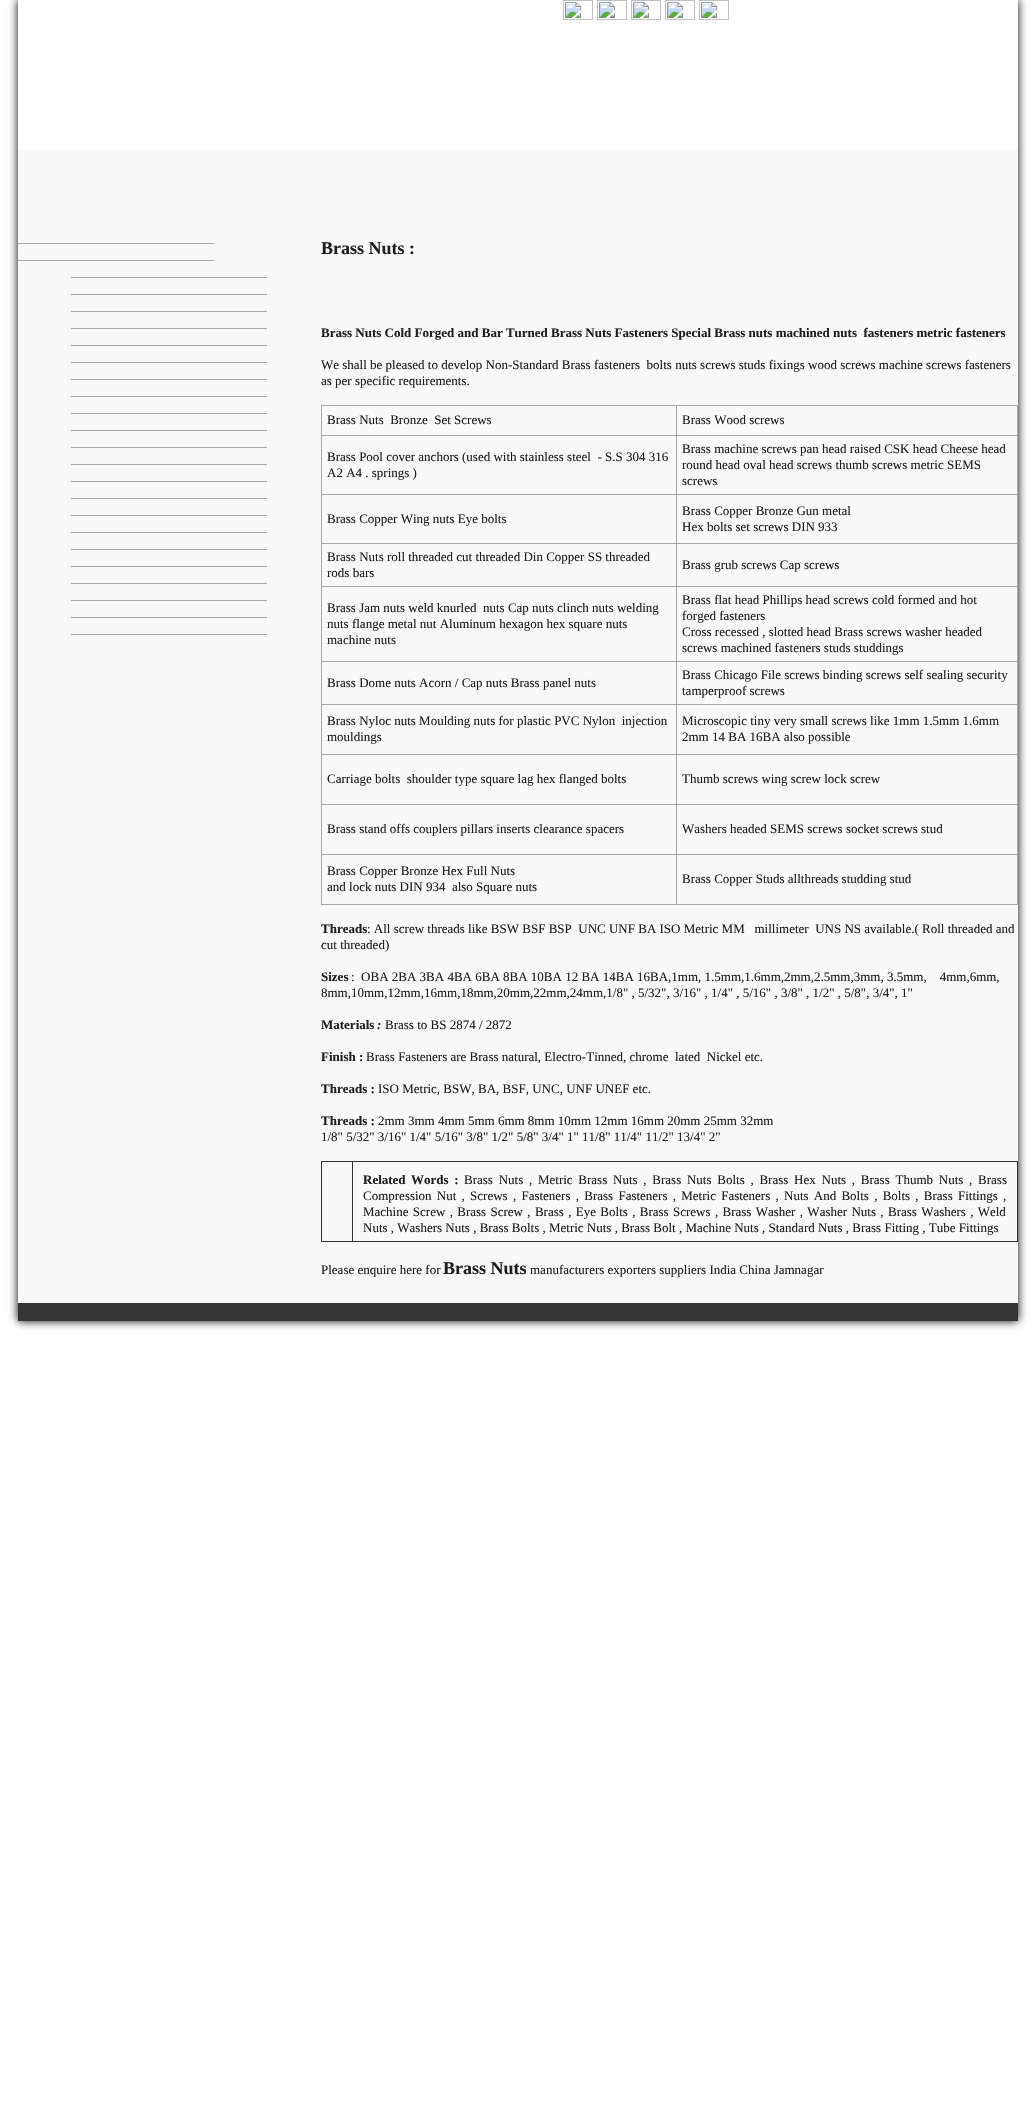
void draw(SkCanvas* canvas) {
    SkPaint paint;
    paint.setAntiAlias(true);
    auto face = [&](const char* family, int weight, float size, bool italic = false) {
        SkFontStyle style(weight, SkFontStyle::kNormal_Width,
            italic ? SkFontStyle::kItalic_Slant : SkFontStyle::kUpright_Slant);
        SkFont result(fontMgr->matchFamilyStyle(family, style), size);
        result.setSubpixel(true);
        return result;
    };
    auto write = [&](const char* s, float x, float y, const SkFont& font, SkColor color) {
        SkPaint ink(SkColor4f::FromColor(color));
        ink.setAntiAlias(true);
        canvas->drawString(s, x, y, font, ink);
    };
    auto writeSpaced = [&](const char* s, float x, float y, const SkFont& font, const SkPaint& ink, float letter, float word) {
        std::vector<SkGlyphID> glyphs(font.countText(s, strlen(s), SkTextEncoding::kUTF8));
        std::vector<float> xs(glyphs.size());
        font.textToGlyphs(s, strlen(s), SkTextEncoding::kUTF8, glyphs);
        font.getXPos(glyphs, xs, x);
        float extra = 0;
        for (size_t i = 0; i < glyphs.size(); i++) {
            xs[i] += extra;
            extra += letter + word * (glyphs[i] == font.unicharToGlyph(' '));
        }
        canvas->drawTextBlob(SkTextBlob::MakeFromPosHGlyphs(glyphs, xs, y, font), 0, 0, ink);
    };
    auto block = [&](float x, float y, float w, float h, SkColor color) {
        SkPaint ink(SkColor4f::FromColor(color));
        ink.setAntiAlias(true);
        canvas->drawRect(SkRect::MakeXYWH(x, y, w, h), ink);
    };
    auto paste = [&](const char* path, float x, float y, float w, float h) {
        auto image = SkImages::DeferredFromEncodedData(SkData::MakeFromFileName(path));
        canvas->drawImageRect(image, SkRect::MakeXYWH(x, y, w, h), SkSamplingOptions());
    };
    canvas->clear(SK_ColorWHITE);
    canvas->save();
    canvas->clipPath(SkPathBuilder(SkPathFillType::kEvenOdd).moveTo(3, 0).lineTo(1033, 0).lineTo(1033, 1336).lineTo(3, 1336).close().moveTo(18, 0).lineTo(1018, 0).lineTo(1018, 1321).lineTo(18, 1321).close().detach(), true);
    paint.setColor(SK_ColorBLACK);
    paint.setMaskFilter(SkMaskFilter::MakeBlur(kNormal_SkBlurStyle, 4.5f));
    canvas->drawRect(SkRect::MakeXYWH(18, 0, 1000, 1321), paint);
    paint.setMaskFilter(nullptr);
    canvas->restore();
    paste("pic1.png", 563, 0, 30, 20);
    paste("pic1.png", 597, 0, 30, 20);
    paste("pic1.png", 631, 0, 30, 20);
    paste("pic1.png", 665, 0, 30, 20);
    paste("pic1.png", 699, 0, 30, 20);
    block(18, 149, 1000, 1154, SkColorSetRGB(249, 249, 249));
    block(18, 243, 196, 1, SkColorSetRGB(168, 167, 167));
    block(18, 260, 196, 1, SkColorSetRGB(168, 167, 167));
    block(71, 277, 196, 1, SkColorSetRGB(168, 167, 167));
    block(71, 294, 196, 1, SkColorSetRGB(168, 167, 167));
    block(71, 311, 196, 1, SkColorSetRGB(168, 167, 167));
    block(71, 328, 196, 1, SkColorSetRGB(168, 167, 167));
    block(71, 345, 196, 1, SkColorSetRGB(168, 167, 167));
    block(71, 362, 196, 1, SkColorSetRGB(168, 167, 167));
    block(71, 379, 196, 1, SkColorSetRGB(168, 167, 167));
    block(71, 396, 196, 1, SkColorSetRGB(168, 167, 167));
    block(71, 413, 196, 1, SkColorSetRGB(168, 167, 167));
    block(71, 430, 196, 1, SkColorSetRGB(168, 167, 167));
    block(71, 447, 196, 1, SkColorSetRGB(168, 167, 167));
    block(71, 464, 196, 1, SkColorSetRGB(168, 167, 167));
    block(71, 481, 196, 1, SkColorSetRGB(168, 167, 167));
    block(71, 498, 196, 1, SkColorSetRGB(168, 167, 167));
    block(71, 515, 196, 1, SkColorSetRGB(168, 167, 167));
    block(71, 532, 196, 1, SkColorSetRGB(168, 167, 167));
    block(71, 549, 196, 1, SkColorSetRGB(168, 167, 167));
    block(71, 566, 196, 1, SkColorSetRGB(168, 167, 167));
    block(71, 583, 196, 1, SkColorSetRGB(168, 167, 167));
    block(71, 600, 196, 1, SkColorSetRGB(168, 167, 167));
    block(71, 617, 196, 1, SkColorSetRGB(168, 167, 167));
    block(71, 634, 196, 1, SkColorSetRGB(168, 167, 167));
    auto kFont1 = face("Liberation Serif", 700, 18);
    write("Brass Nuts :", 321, 254, kFont1, SkColorSetRGB(29, 30, 32));
    auto kFont2 = face("Liberation Serif", 700, 13);
    write("Brass Nuts Cold Forged and Bar Turned Brass Nuts Fasteners Special Brass nuts machined nuts  fasteners metric fasteners", 321, 337, kFont2, SkColorSetRGB(29, 30, 32));
    auto kFont3 = face("Liberation Serif", 400, 13);
    write("We shall be pleased to develop Non-Standard Brass fasteners  bolts nuts screws studs fixings wood screws machine screws fasteners", 321, 369, kFont3, SkColorSetRGB(29, 30, 32));
    write("as per specific requirements.", 321, 385, kFont3, SkColorSetRGB(29, 30, 32));
    block(321, 405, 697, 1, SkColorSetRGB(168, 167, 167));
    block(1017, 405, 1, 500, SkColorSetRGB(168, 167, 167));
    block(321, 904, 697, 1, SkColorSetRGB(168, 167, 167));
    block(321, 405, 1, 500, SkColorSetRGB(168, 167, 167));
    write("Brass Nuts  Bronze  Set Screws", 327, 424, kFont3, SkColorSetRGB(29, 30, 32));
    block(676, 435, 342, 1, SkColorSetRGB(168, 167, 167));
    block(676, 494, 342, 1, SkColorSetRGB(168, 167, 167));
    block(676, 543, 342, 1, SkColorSetRGB(168, 167, 167));
    block(676, 586, 342, 1, SkColorSetRGB(168, 167, 167));
    block(676, 661, 342, 1, SkColorSetRGB(168, 167, 167));
    block(676, 704, 342, 1, SkColorSetRGB(168, 167, 167));
    block(676, 754, 342, 1, SkColorSetRGB(168, 167, 167));
    block(676, 804, 342, 1, SkColorSetRGB(168, 167, 167));
    block(676, 854, 342, 1, SkColorSetRGB(168, 167, 167));
    block(676, 854, 1, 51, SkColorSetRGB(168, 167, 167));
    block(321, 854, 356, 1, SkColorSetRGB(168, 167, 167));
    block(676, 804, 1, 51, SkColorSetRGB(168, 167, 167));
    block(321, 804, 356, 1, SkColorSetRGB(168, 167, 167));
    block(676, 754, 1, 51, SkColorSetRGB(168, 167, 167));
    block(321, 754, 356, 1, SkColorSetRGB(168, 167, 167));
    block(676, 704, 1, 51, SkColorSetRGB(168, 167, 167));
    block(321, 704, 356, 1, SkColorSetRGB(168, 167, 167));
    block(676, 661, 1, 44, SkColorSetRGB(168, 167, 167));
    block(321, 661, 356, 1, SkColorSetRGB(168, 167, 167));
    block(676, 586, 1, 76, SkColorSetRGB(168, 167, 167));
    block(321, 586, 356, 1, SkColorSetRGB(168, 167, 167));
    block(676, 543, 1, 44, SkColorSetRGB(168, 167, 167));
    block(321, 543, 356, 1, SkColorSetRGB(168, 167, 167));
    block(676, 494, 1, 50, SkColorSetRGB(168, 167, 167));
    block(321, 494, 356, 1, SkColorSetRGB(168, 167, 167));
    block(676, 435, 1, 60, SkColorSetRGB(168, 167, 167));
    block(321, 435, 356, 1, SkColorSetRGB(168, 167, 167));
    block(676, 405, 1, 31, SkColorSetRGB(168, 167, 167));
    write("Brass Wood screws", 682, 424, kFont3, SkColorSetRGB(29, 30, 32));
    write("Brass Pool cover anchors (used with stainless steel  - S.S 304 316", 327, 461, kFont3, SkColorSetRGB(29, 30, 32));
    write("A2 A4 . springs )", 327, 477, kFont3, SkColorSetRGB(29, 30, 32));
    write("Brass machine screws pan head raised CSK head Cheese head", 682, 453, kFont3, SkColorSetRGB(29, 30, 32));
    write("round head oval head screws thumb screws metric SEMS", 682, 469, kFont3, SkColorSetRGB(29, 30, 32));
    write("screws", 682, 485, kFont3, SkColorSetRGB(29, 30, 32));
    write("Brass Copper Wing nuts Eye bolts", 327, 523, kFont3, SkColorSetRGB(29, 30, 32));
    write("Brass Copper Bronze Gun metal", 682, 515, kFont3, SkColorSetRGB(29, 30, 32));
    write("Hex bolts set screws DIN 933", 682, 531, kFont3, SkColorSetRGB(29, 30, 32));
    write("Brass Nuts roll threaded cut threaded Din Copper SS threaded", 327, 561, kFont3, SkColorSetRGB(29, 30, 32));
    write("rods bars", 327, 577, kFont3, SkColorSetRGB(29, 30, 32));
    write("Brass grub screws Cap screws", 682, 569, kFont3, SkColorSetRGB(29, 30, 32));
    write("Brass Jam nuts weld knurled  nuts Cap nuts clinch nuts welding", 327, 612, kFont3, SkColorSetRGB(29, 30, 32));
    write("nuts flange metal nut Aluminum hexagon hex square nuts", 327, 628, kFont3, SkColorSetRGB(29, 30, 32));
    write("machine nuts", 327, 644, kFont3, SkColorSetRGB(29, 30, 32));
    write("Brass flat head Phillips head screws cold formed and hot", 682, 604, kFont3, SkColorSetRGB(29, 30, 32));
    write("forged fasteners", 682, 620, kFont3, SkColorSetRGB(29, 30, 32));
    write("Cross recessed , slotted head Brass screws washer headed", 682, 636, kFont3, SkColorSetRGB(29, 30, 32));
    write("screws machined fasteners studs studdings", 682, 652, kFont3, SkColorSetRGB(29, 30, 32));
    write("Brass Dome nuts Acorn / Cap nuts Brass panel nuts", 327, 687, kFont3, SkColorSetRGB(29, 30, 32));
    write("Brass Chicago File screws binding screws self sealing security", 682, 679, kFont3, SkColorSetRGB(29, 30, 32));
    write("tamperproof screws", 682, 695, kFont3, SkColorSetRGB(29, 30, 32));
    write("Brass Nyloc nuts Moulding nuts for plastic PVC Nylon  injection", 327, 725, kFont3, SkColorSetRGB(29, 30, 32));
    write("mouldings", 327, 741, kFont3, SkColorSetRGB(29, 30, 32));
    write("Microscopic tiny very small screws like 1mm 1.5mm 1.6mm", 682, 725, kFont3, SkColorSetRGB(29, 30, 32));
    write("2mm 14 BA 16BA also possible", 682, 741, kFont3, SkColorSetRGB(29, 30, 32));
    write("Carriage bolts  shoulder type square lag hex flanged bolts", 327, 783, kFont3, SkColorSetRGB(29, 30, 32));
    write("Thumb screws wing screw lock screw", 682, 783, kFont3, SkColorSetRGB(29, 30, 32));
    write("Brass stand offs couplers pillars inserts clearance spacers", 327, 833, kFont3, SkColorSetRGB(29, 30, 32));
    write("Washers headed SEMS screws socket screws stud", 682, 833, kFont3, SkColorSetRGB(29, 30, 32));
    write("Brass Copper Bronze Hex Full Nuts", 327, 875, kFont3, SkColorSetRGB(29, 30, 32));
    write("and lock nuts DIN 934  also Square nuts", 327, 891, kFont3, SkColorSetRGB(29, 30, 32));
    write("Brass Copper Studs allthreads studding stud", 682, 883, kFont3, SkColorSetRGB(29, 30, 32));
    write("Threads", 321, 933, kFont2, SkColorSetRGB(29, 30, 32));
    write(": All screw threads like BSW BSF BSP  UNC UNF BA ISO Metric MM   millimeter  UNS NS available.( Roll threaded and", 367, 933, kFont3, SkColorSetRGB(29, 30, 32));
    write("cut threaded)", 321, 949, kFont3, SkColorSetRGB(29, 30, 32));
    write("Sizes", 321, 981, kFont2, SkColorSetRGB(29, 30, 32));
    write(":  OBA 2BA 3BA 4BA 6BA 8BA 10BA 12 BA 14BA 16BA,1mm, 1.5mm,1.6mm,2mm,2.5mm,3mm, 3.5mm,    4mm,6mm,", 351, 981, kFont3, SkColorSetRGB(29, 30, 32));
    write("8mm,10mm,12mm,16mm,18mm,20mm,22mm,24mm,1/8\" , 5/32\", 3/16\" , 1/4\" , 5/16\" , 3/8\" , 1/2\" , 5/8\", 3/4\", 1\"", 321, 997, kFont3, SkColorSetRGB(29, 30, 32));
    write("Materials", 321, 1029, kFont2, SkColorSetRGB(29, 30, 32));
    auto kFont4 = face("Liberation Serif", 700, 13, true);
    write(":", 377, 1029, kFont4, SkColorSetRGB(29, 30, 32));
    write("Brass to BS 2874 / 2872", 385, 1029, kFont3, SkColorSetRGB(29, 30, 32));
    write("Finish :", 321, 1061, kFont2, SkColorSetRGB(29, 30, 32));
    write("Brass Fasteners are Brass natural, Electro-Tinned, chrome", 366, 1061, kFont3, SkColorSetRGB(29, 30, 32));
    write("lated  Nickel etc.", 675, 1061, kFont3, SkColorSetRGB(29, 30, 32));
    write("Threads :", 321, 1093, kFont2, SkColorSetRGB(29, 30, 32));
    write("ISO Metric, BSW, BA, BSF, UNC, UNF UNEF etc.", 378, 1093, kFont3, SkColorSetRGB(29, 30, 32));
    write("Threads :", 321, 1125, kFont2, SkColorSetRGB(29, 30, 32));
    write("2mm 3mm 4mm 5mm 6mm 8mm 10mm 12mm 16mm 20mm 25mm 32mm", 378, 1125, kFont3, SkColorSetRGB(29, 30, 32));
    write("1/8\" 5/32\" 3/16\" 1/4\" 5/16\" 3/8\" 1/2\" 5/8\" 3/4\" 1\" 11/8\" 11/4\" 11/2\" 13/4\" 2\"", 321, 1141, kFont3, SkColorSetRGB(29, 30, 32));
    block(321, 1161, 697, 1, SkColorSetRGB(51, 51, 51));
    block(1017, 1161, 1, 81, SkColorSetRGB(51, 51, 51));
    block(321, 1241, 697, 1, SkColorSetRGB(51, 51, 51));
    block(321, 1161, 1, 81, SkColorSetRGB(51, 51, 51));
    block(352, 1161, 1, 81, SkColorSetRGB(51, 51, 51));
    write("Related", 363, 1184, kFont2, SkColorSetRGB(29, 30, 32));
    paint.setColor(SkColorSetRGB(29, 30, 32));
    writeSpaced("Words :", 411, 1184, kFont2, paint, 0, 2.5f);
    writeSpaced("Brass Nuts , Metric Brass Nuts , Brass Nuts Bolts , Brass Hex Nuts , Brass Thumb Nuts , Brass", 464, 1184, kFont3, paint, 0, 2.5f);
    writeSpaced("Compression Nut , Screws , Fasteners , Brass Fasteners , Metric Fasteners ,", 363, 1200, kFont3, paint, 0, 2);
    writeSpaced("Nuts And Bolts , Bolts , Brass Fittings ,", 784, 1200, kFont3, paint, 0, 2);
    writeSpaced("Machine Screw , Brass Screw , Brass , Eye Bolts , Brass Screws , Brass Washer , Washer Nuts ,", 363, 1216, kFont3, paint, 0, 1.1f);
    writeSpaced("Brass Washers , Weld", 888, 1216, kFont3, paint, 0, 1);
    write("Nuts , Washers Nuts , Brass Bolts , Metric Nuts , Brass Bolt , Machine Nuts , Standard Nuts , Brass Fitting , Tube Fittings", 363, 1232, kFont3, SkColorSetRGB(29, 30, 32));
    write("Please enquire here for", 321, 1274, kFont3, SkColorSetRGB(29, 30, 32));
    write("Brass Nuts", 443, 1274, kFont1, SkColorSetRGB(29, 30, 32));
    write("manufacturers exporters suppliers India China Jamnagar", 530, 1274, kFont3, SkColorSetRGB(29, 30, 32));
    block(18, 1303, 1000, 18, SkColorSetRGB(53, 53, 53));
}
